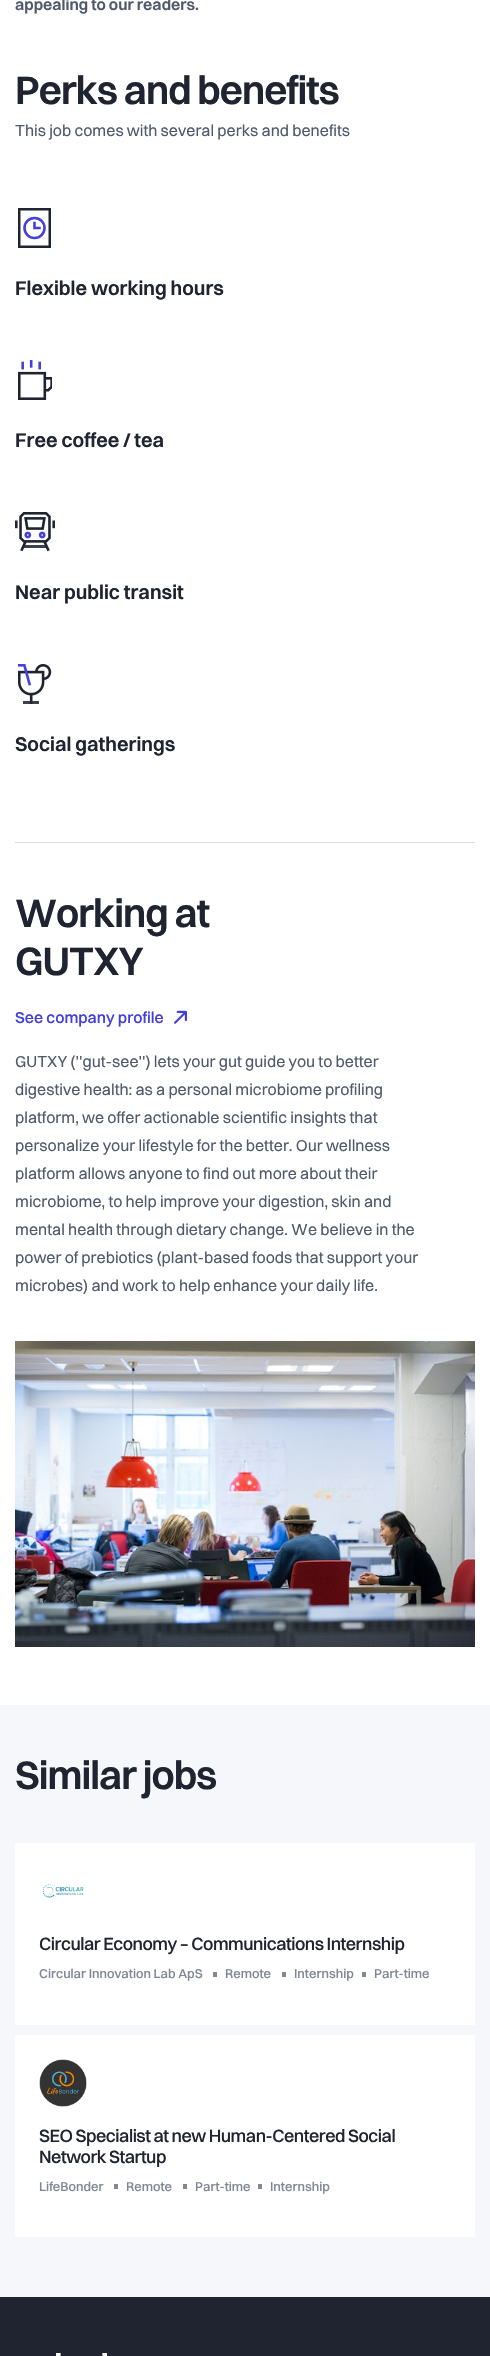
void draw(SkCanvas* canvas) {
    SkPaint paint;
    paint.setAntiAlias(true);
    auto face = [&](const char* family, int weight, float size, bool italic = false) {
        SkFontStyle style(weight, SkFontStyle::kNormal_Width,
            italic ? SkFontStyle::kItalic_Slant : SkFontStyle::kUpright_Slant);
        SkFont result(fontMgr->matchFamilyStyle(family, style), size);
        result.setSubpixel(true);
        return result;
    };
    auto write = [&](const char* s, float x, float y, const SkFont& font, SkColor color) {
        SkPaint ink(SkColor4f::FromColor(color));
        ink.setAntiAlias(true);
        canvas->drawString(s, x, y, font, ink);
    };
    auto writeSpaced = [&](const char* s, float x, float y, const SkFont& font, const SkPaint& ink, float letter, float word) {
        std::vector<SkGlyphID> glyphs(font.countText(s, strlen(s), SkTextEncoding::kUTF8));
        std::vector<float> xs(glyphs.size());
        font.textToGlyphs(s, strlen(s), SkTextEncoding::kUTF8, glyphs);
        font.getXPos(glyphs, xs, x);
        float extra = 0;
        for (size_t i = 0; i < glyphs.size(); i++) {
            xs[i] += extra;
            extra += letter + word * (glyphs[i] == font.unicharToGlyph(' '));
        }
        canvas->drawTextBlob(SkTextBlob::MakeFromPosHGlyphs(glyphs, xs, y, font), 0, 0, ink);
    };
    auto block = [&](float x, float y, float w, float h, SkColor color) {
        SkPaint ink(SkColor4f::FromColor(color));
        ink.setAntiAlias(true);
        canvas->drawRect(SkRect::MakeXYWH(x, y, w, h), ink);
    };
    auto paste = [&](const char* path, float x, float y, float w, float h) {
        auto image = SkImages::DeferredFromEncodedData(SkData::MakeFromFileName(path));
        canvas->drawImageRect(image, SkRect::MakeXYWH(x, y, w, h), SkSamplingOptions());
    };
    canvas->clear(SK_ColorWHITE);
    auto kFont1 = face("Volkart", 400, 16);
    write("appealing to our readers.", 15, 10, kFont1, SkColorSetRGB(81, 89, 108));
    auto kFont2 = face("Volkart", 400, 40);
    paint.setColor(SkColorSetRGB(31, 36, 48));
    writeSpaced("Perks and benefits", 15, 104, kFont2, paint, -1, 0);
    auto kFont3 = face("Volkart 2", 400, 16);
    write("This job comes with several perks and benefits", 15, 136, kFont3, SkColorSetRGB(81, 89, 108));
    paint.setStyle(SkPaint::kStroke_Style);
    paint.setStrokeWidth(2.5f);
    canvas->drawRect(SkRect::MakeXYWH(19.25f, 209.25f, 30.5f, 37.5f), paint);
    paint.setStrokeWidth(2.6f);
    paint.setStrokeCap(SkPaint::kSquare_Cap);
    paint.setColor(SkColorSetRGB(68, 64, 219));
    canvas->drawPath(SkPathBuilder().moveTo(34.5f, 223).lineTo(34.5f, 228).lineTo(39.5f, 228).detach(), paint);
    paint.setStrokeCap(SkPaint::kButt_Cap);
    canvas->drawCircle(34.5f, 228, 10, paint);
    auto kFont4 = face("Volkart", 400, 20);
    write("Flexible working hours", 15, 295, kFont4, SkColorSetRGB(31, 36, 48));
    paste("pic1.png", 18, 360, 34, 40);
    write("Free coffee / tea", 15, 447, kFont4, SkColorSetRGB(31, 36, 48));
    paste("pic2.png", 15, 512, 40, 40);
    write("Near public transit", 15, 599, kFont4, SkColorSetRGB(31, 36, 48));
    paste("pic3.png", 18, 664, 34, 40);
    write("Social gatherings", 15, 751, kFont4, SkColorSetRGB(31, 36, 48));
    block(15, 842, 460, 1, SkColorSetRGB(218, 220, 225));
    paint.setStyle(SkPaint::kFill_Style);
    paint.setColor(SkColorSetRGB(31, 36, 48));
    writeSpaced("Working at", 15, 927, kFont2, paint, -1, 0);
    writeSpaced("GUTXY", 15, 975, kFont2, paint, -1, 0);
    auto kFont5 = face("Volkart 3", 400, 16);
    write("See company profile", 15, 1023, kFont5, SkColorSetRGB(68, 63, 219));
    paste("pic4.png", 174, 1010, 13, 14);
    write("GUTXY (''gut-see'') lets your gut guide you to better", 15, 1067, kFont3, SkColorSetRGB(81, 89, 108));
    write("digestive health: as a personal microbiome profiling", 15, 1095, kFont3, SkColorSetRGB(81, 89, 108));
    write("platform, we offer actionable scientific insights that", 15, 1123, kFont3, SkColorSetRGB(81, 89, 108));
    write("personalize your lifestyle for the better. Our wellness", 15, 1151, kFont3, SkColorSetRGB(81, 89, 108));
    write("platform allows anyone to find out more about their", 15, 1179, kFont3, SkColorSetRGB(81, 89, 108));
    write("microbiome, to help improve your digestion, skin and", 15, 1207, kFont3, SkColorSetRGB(81, 89, 108));
    write("mental health through dietary change. We believe in the", 15, 1235, kFont3, SkColorSetRGB(81, 89, 108));
    write("power of prebiotics (plant-based foods that support your", 15, 1263, kFont3, SkColorSetRGB(81, 89, 108));
    write("microbes) and work to help enhance your daily life.", 15, 1291, kFont3, SkColorSetRGB(81, 89, 108));
    paste("pic5.png", 15, 1341, 460, 306);
    block(0, 1705, 490, 592, SkColorSetRGB(245, 247, 250));
    writeSpaced("Similar jobs", 15, 1789, kFont2, paint, -1, 0);
    block(15, 1843, 460, 182, SK_ColorWHITE);
    paste("pic6.png", 42, 1884, 42, 14);
    auto kFont6 = face("Volkart 3", 400, 18);
    writeSpaced("Circular Economy – Communications Internship", 39, 1950, kFont6, paint, -0.5f, 0);
    auto kFont7 = face("Volkart 3", 400, 13);
    write("Circular Innovation Lab ApS", 39, 1978, kFont7, SkColorSetRGB(129, 135, 149));
    block(213, 1972, 4, 5, SkColorSetRGB(129, 135, 149));
    write("Remote", 225, 1978, kFont7, SkColorSetRGB(129, 135, 149));
    block(282, 1972, 4, 5, SkColorSetRGB(129, 135, 149));
    write("Internship", 294, 1978, kFont7, SkColorSetRGB(129, 135, 149));
    block(362, 1972, 4, 5, SkColorSetRGB(129, 135, 149));
    write("Part-time", 374, 1978, kFont7, SkColorSetRGB(129, 135, 149));
    block(15, 2035, 460, 202, SK_ColorWHITE);
    paste("pic7.png", 39, 2059, 48, 48);
    writeSpaced("SEO Specialist at new Human-Centered Social", 39, 2142, kFont6, paint, -0.5f, 0);
    writeSpaced("Network Startup", 39, 2163, kFont6, paint, -0.5f, 0);
    write("LifeBonder", 39, 2191, kFont7, SkColorSetRGB(129, 135, 149));
    block(114, 2184, 4, 5, SkColorSetRGB(129, 135, 149));
    write("Remote", 126, 2191, kFont7, SkColorSetRGB(129, 135, 149));
    block(183, 2184, 4, 5, SkColorSetRGB(129, 135, 149));
    write("Part-time", 195, 2191, kFont7, SkColorSetRGB(129, 135, 149));
    block(258, 2184, 4, 5, SkColorSetRGB(129, 135, 149));
    write("Internship", 270, 2191, kFont7, SkColorSetRGB(129, 135, 149));
    block(0, 2297, 490, 59, SkColorSetRGB(31, 36, 48));
    paste("pic8.png", 56, 2353, 51, 3);
}
